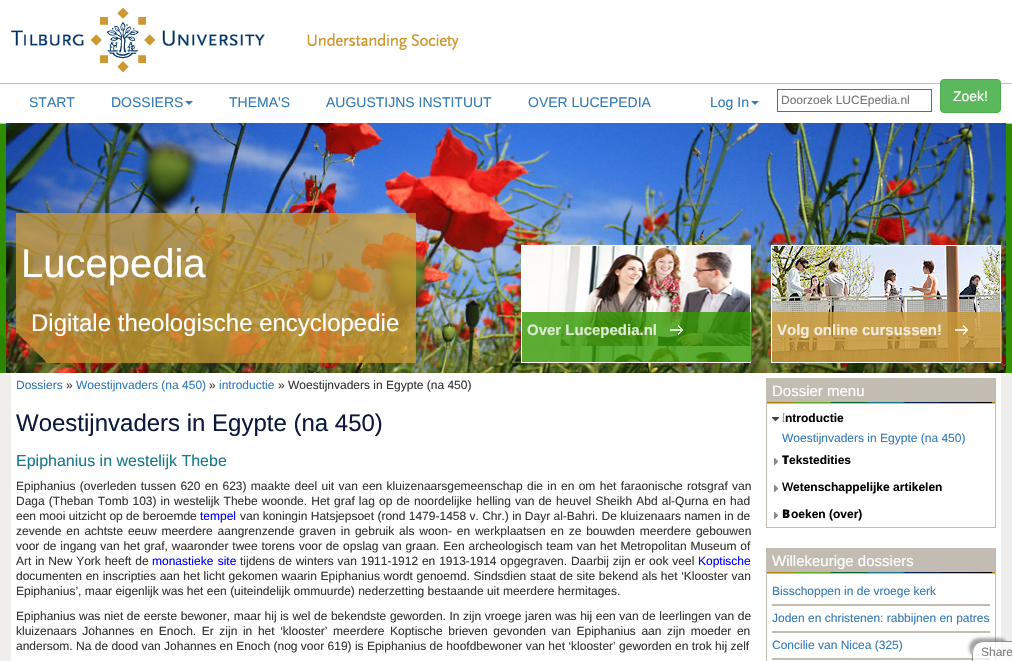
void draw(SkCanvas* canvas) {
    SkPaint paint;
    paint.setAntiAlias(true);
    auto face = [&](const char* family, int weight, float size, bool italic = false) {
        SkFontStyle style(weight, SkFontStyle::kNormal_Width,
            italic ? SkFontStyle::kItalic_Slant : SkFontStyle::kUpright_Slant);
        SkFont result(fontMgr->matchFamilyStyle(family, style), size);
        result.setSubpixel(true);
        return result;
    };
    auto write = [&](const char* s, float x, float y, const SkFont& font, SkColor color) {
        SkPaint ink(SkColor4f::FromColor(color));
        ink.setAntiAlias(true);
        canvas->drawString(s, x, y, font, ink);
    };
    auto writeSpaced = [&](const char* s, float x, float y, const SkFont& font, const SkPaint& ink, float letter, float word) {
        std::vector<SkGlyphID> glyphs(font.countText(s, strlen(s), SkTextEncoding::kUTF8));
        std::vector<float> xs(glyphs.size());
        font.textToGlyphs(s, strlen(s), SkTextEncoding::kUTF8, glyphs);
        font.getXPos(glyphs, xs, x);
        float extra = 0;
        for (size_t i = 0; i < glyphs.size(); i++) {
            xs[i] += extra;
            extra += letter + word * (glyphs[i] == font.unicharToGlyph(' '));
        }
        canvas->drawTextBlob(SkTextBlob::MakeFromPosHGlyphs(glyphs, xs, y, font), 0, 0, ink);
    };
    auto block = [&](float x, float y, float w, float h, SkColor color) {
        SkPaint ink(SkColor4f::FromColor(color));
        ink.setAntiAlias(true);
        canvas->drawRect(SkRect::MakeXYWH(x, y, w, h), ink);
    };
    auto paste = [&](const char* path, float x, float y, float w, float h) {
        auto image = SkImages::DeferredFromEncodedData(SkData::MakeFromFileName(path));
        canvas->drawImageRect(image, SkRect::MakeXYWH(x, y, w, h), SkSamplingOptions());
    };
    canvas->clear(SkColorSetRGB(239, 238, 236));
    block(0, 0, 1012, 83, SK_ColorWHITE);
    block(0, 83, 1012, 1, SkColorSetRGB(195, 188, 178));
    paste("pic1.png", 11, 7, 254, 66);
    paste("pic2.png", 307, 32, 152, 22);
    block(0, 84, 1012, 39, SK_ColorWHITE);
    auto kFont1 = face("Liberation Sans", 400, 14);
    write("START", 29, 107, kFont1, SkColorSetRGB(51, 122, 183));
    write("DOSSIERS", 111, 107, kFont1, SkColorSetRGB(51, 122, 183));
    paint.setColor(SkColorSetRGB(51, 122, 183));
    canvas->drawPath(SkPathBuilder().moveTo(185, 101).lineTo(193, 101).lineTo(189, 105).close().detach(), paint);
    write("THEMA'S", 229, 107, kFont1, SkColorSetRGB(51, 122, 183));
    write("AUGUSTIJNS INSTITUUT", 326, 107, kFont1, SkColorSetRGB(51, 122, 183));
    write("OVER LUCEPEDIA", 528, 107, kFont1, SkColorSetRGB(51, 122, 183));
    write("Log In", 710, 107, kFont1, SkColorSetRGB(51, 122, 183));
    canvas->drawPath(SkPathBuilder().moveTo(751, 101).lineTo(759, 101).lineTo(755, 105).close().detach(), paint);
    paint.setStyle(SkPaint::kStroke_Style);
    paint.setStrokeWidth(1);
    paint.setColor(SkColorSetRGB(51, 153, 0));
    canvas->drawRect(SkRect::MakeXYWH(777.5f, 89.5f, 154, 22), paint);
    auto kFont2 = face("Liberation Sans", 400, 12);
    write("Doorzoek LUCEpedia.nl", 781, 104, kFont2, SkColorSetRGB(117, 117, 117));
    paint.setStyle(SkPaint::kFill_Style);
    paint.setColor(SkColorSetRGB(92, 184, 92));
    canvas->drawRoundRect(SkRect::MakeXYWH(940.5f, 79.5f, 60, 33), 3.5f, 3.5f, paint);
    paint.setStyle(SkPaint::kStroke_Style);
    paint.setColor(SkColorSetRGB(76, 174, 76));
    canvas->drawRoundRect(SkRect::MakeXYWH(940.5f, 79.5f, 60, 33), 3.5f, 3.5f, paint);
    write("Zoek!", 953, 101, kFont1, SK_ColorWHITE);
    paste("pic3.png", 0, 123, 1012, 250);
    paste("pic4.png", 6, 123, 1000, 250);
    paste("pic5.png", 16, 213, 400, 150);
    auto kFont3 = face("Liberation Sans", 400, 40);
    write("Lucepedia", 21, 277, kFont3, SK_ColorWHITE);
    auto kFont4 = face("Liberation Sans", 400, 24);
    write("Digitale theologische encyclopedie", 31, 331, kFont4, SK_ColorWHITE);
    paste("pic6.png", 522, 246, 228, 116);
    paint.setColor(SK_ColorWHITE);
    canvas->drawRect(SkRect::MakeXYWH(521.5f, 245.5f, 229, 117), paint);
    block(522, 312, 230, 50, SkColorSetARGB(204, 51, 153, 0));
    auto kFont5 = face("Liberation Sans", 700, 15);
    write("Over Lucepedia.nl", 527, 335, kFont5, SkColorSetRGB(220, 235, 210));
    paste("pic7.png", 670, 325, 13, 10);
    paste("pic8.png", 772, 246, 228, 116);
    canvas->drawRect(SkRect::MakeXYWH(771.5f, 245.5f, 229, 117), paint);
    block(772, 312, 230, 50, SkColorSetARGB(204, 204, 153, 51));
    write("Volg online cursussen!", 777, 335, kFont5, SkColorSetRGB(244, 236, 219));
    paste("pic9.png", 955, 325, 13, 10);
    block(11, 373, 990, 288, SK_ColorWHITE);
    write("Dossiers", 16, 389, kFont2, SkColorSetRGB(51, 122, 183));
    write("»", 66, 389, kFont2, SkColorSetRGB(51, 51, 51));
    write("Woestijnvaders (na 450)", 76, 389, kFont2, SkColorSetRGB(51, 122, 183));
    write("»", 209, 389, kFont2, SkColorSetRGB(51, 51, 51));
    write("introductie", 219, 389, kFont2, SkColorSetRGB(51, 122, 183));
    write("» Woestijnvaders in Egypte (na 450)", 278, 389, kFont2, SkColorSetRGB(51, 51, 51));
    write("Woestijnvaders in Egypte (na 450)", 16, 431, kFont4, SkColorSetRGB(12, 25, 58));
    auto kFont6 = face("Liberation Sans", 400, 16);
    write("Epiphanius in westelijk Thebe", 16, 466, kFont6, SkColorSetRGB(24, 121, 141));
    paint.setStyle(SkPaint::kFill_Style);
    paint.setColor(SkColorSetRGB(51, 51, 51));
    writeSpaced("Epiphanius (overleden tussen 620 en 623) maakte deel uit van een kluizenaarsgemeenschap die in en om het faraonische rotsgraf van", 16, 490, kFont2, paint, 0, 1);
    writeSpaced("Daga (Theban Tomb 103) in westelijk Thebe woonde. Het graf lag op de noordelijke helling van de heuvel Sheikh Abd al-Qurna en had", 16, 505, kFont2, paint, 0, 0.8f);
    write("een mooi uitzicht op de beroemde", 16, 520, kFont2, SkColorSetRGB(51, 51, 51));
    write("tempel", 200, 520, kFont2, SkColorSetRGB(0, 0, 255));
    write("van koningin Hatsjepsoet (rond 1479-1458 v. Chr.) in Dayr al-Bahri. De kluizenaars namen in de", 240, 520, kFont2, SkColorSetRGB(51, 51, 51));
    writeSpaced("zevende en achtste eeuw meerdere aangrenzende graven in gebruik als woon- en werkplaatsen en ze bouwden meerdere gebouwen", 16, 535, kFont2, paint, 0, 1.5f);
    writeSpaced("voor de ingang van het graf, waaronder twee torens voor de opslag van graan. Een archeologisch team van het Metropolitan Museum of", 16, 550, kFont2, paint, 0, 0.5f);
    writeSpaced("Art in New York heeft de", 16, 565, kFont2, paint, 0, 0.5f);
    paint.setColor(SkColorSetRGB(0, 0, 255));
    writeSpaced("monastieke site", 152, 565, kFont2, paint, 0, 1);
    paint.setColor(SkColorSetRGB(51, 51, 51));
    writeSpaced("tijdens de winters van 1911-1912 en 1913-1914 opgegraven. Daarbij zijn er ook veel", 240, 565, kFont2, paint, 0, 0.5f);
    write("Koptische", 698, 565, kFont2, SkColorSetRGB(0, 0, 255));
    writeSpaced("documenten en inscripties aan het licht gekomen waarin Epiphanius wordt genoemd. Sindsdien staat de site bekend als het ‘Klooster van", 16, 580, kFont2, paint, 0, 0.3f);
    write("Epiphanius’, maar eigenlijk was het een (uiteindelijk ommuurde) nederzetting bestaande uit meerdere hermitages.", 16, 595, kFont2, SkColorSetRGB(51, 51, 51));
    writeSpaced("Epiphanius was niet de eerste bewoner, maar hij is wel de bekendste geworden. In zijn vroege jaren was hij een van de leerlingen van de", 16, 620, kFont2, paint, 0, 0.25f);
    writeSpaced("kluizenaars Johannes en Enoch. Er zijn in het ‘klooster’ meerdere Koptische brieven gevonden van Epiphanius aan zijn moeder en", 16, 635, kFont2, paint, 0, 2.25f);
    write("andersom. Na de dood van Johannes en Enoch (nog voor 619) is Epiphanius de hoofdbewoner van het ‘klooster’ geworden en trok hij zelf", 16, 650, kFont2, SkColorSetRGB(51, 51, 51));
    paint.setStyle(SkPaint::kStroke_Style);
    paint.setColor(SkColorSetRGB(195, 188, 178));
    canvas->drawRect(SkRect::MakeXYWH(766.5f, 378.5f, 229, 149), paint);
    block(767, 379, 228, 16, SkColorSetRGB(195, 188, 178));
    paste("pic10.png", 767, 395, 228, 8);
    block(767, 403, 228, 1, SkColorSetRGB(195, 188, 178));
    auto kFont7 = face("Liberation Sans", 400, 15);
    write("Dossier menu", 772, 396, kFont7, SK_ColorWHITE);
    paste("pic11.png", 772, 417, 7, 4);
    auto kFont8 = face("Noto Sans", 100, 12);
    write("I", 782, 422, kFont8, SK_ColorBLACK);
    auto kFont9 = face("Liberation Sans", 700, 12);
    write("ntroductie", 785, 422, kFont9, SK_ColorBLACK);
    write("Woestijnvaders in Egypte (na 450)", 782, 442, kFont2, SkColorSetRGB(51, 122, 183));
    paste("pic12.png", 774, 458, 4, 7);
    auto kFont10 = face("Noto Sans", 900, 12);
    write("T", 782, 464, kFont10, SK_ColorBLACK);
    write("ekstedities", 789, 464, kFont9, SK_ColorBLACK);
    paste("pic12.png", 774, 485, 4, 7);
    auto kFont11 = face("Noto Sans", 500, 12);
    write("W", 782, 491, kFont11, SK_ColorBLACK);
    write("etenschappelijke artikelen", 793, 491, kFont9, SK_ColorBLACK);
    paste("pic12.png", 774, 512, 4, 7);
    write("B", 782, 518, kFont10, SK_ColorBLACK);
    write("oeken (over)", 791, 518, kFont9, SK_ColorBLACK);
    canvas->drawRect(SkRect::MakeXYWH(766.5f, 548.5f, 229, 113), paint);
    block(767, 549, 228, 16, SkColorSetRGB(195, 188, 178));
    paste("pic10.png", 767, 565, 228, 8);
    block(767, 573, 228, 1, SkColorSetRGB(195, 188, 178));
    write("Willekeurige dossiers", 772, 566, kFont7, SK_ColorWHITE);
    block(772, 604, 218, 2, SkColorSetRGB(195, 188, 178));
    write("Bisschoppen in de vroege kerk", 772, 595, kFont2, SkColorSetRGB(51, 122, 183));
    block(772, 631, 218, 2, SkColorSetRGB(195, 188, 178));
    write("Joden en christenen: rabbijnen en patres", 772, 622, kFont2, SkColorSetRGB(51, 122, 183));
    block(772, 658, 218, 2, SkColorSetRGB(195, 188, 178));
    write("Concilie van Nicea (325)", 772, 649, kFont2, SkColorSetRGB(51, 122, 183));
    canvas->save();
    canvas->clipPath(SkPathBuilder(SkPathFillType::kEvenOdd).moveTo(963, 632).lineTo(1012, 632).lineTo(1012, 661).lineTo(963, 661).close().moveTo(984, 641).lineTo(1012, 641).lineTo(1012, 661).lineTo(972, 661).lineTo(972, 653).cubicTo(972, 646.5f, 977.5f, 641, 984, 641).close().detach(), true);
    paint.setStyle(SkPaint::kFill_Style);
    paint.setColor(SkColorSetARGB(89, 0, 0, 0));
    paint.setMaskFilter(SkMaskFilter::MakeBlur(kNormal_SkBlurStyle, 1.5f));
    canvas->drawRoundRect(SkRect::MakeXYWH(969, 638, 40, 20), 12, 12, paint);
    paint.setMaskFilter(nullptr);
    canvas->restore();
    paint.setColor(SkColorSetARGB(179, 255, 255, 255));
    canvas->drawPath(SkPathBuilder().moveTo(984, 642).lineTo(1012, 642).lineTo(1012, 661).lineTo(973, 661).lineTo(973, 653).cubicTo(973, 647, 978, 642, 984, 642).close().detach(), paint);
    paint.setColor(SkColorSetARGB(179, 102, 102, 102));
    canvas->drawPath(SkPathBuilder(SkPathFillType::kEvenOdd).moveTo(984, 641).lineTo(1012, 641).lineTo(1012, 661).lineTo(972, 661).cubicTo(972, 652, 972, 641, 984, 641).close().moveTo(984, 642).lineTo(1012, 642).lineTo(1012, 661).lineTo(973, 661).cubicTo(973, 653, 972, 642, 984, 642).close().detach(), paint);
    write("Share", 981, 656, kFont2, SkColorSetRGB(124, 124, 124));
}
